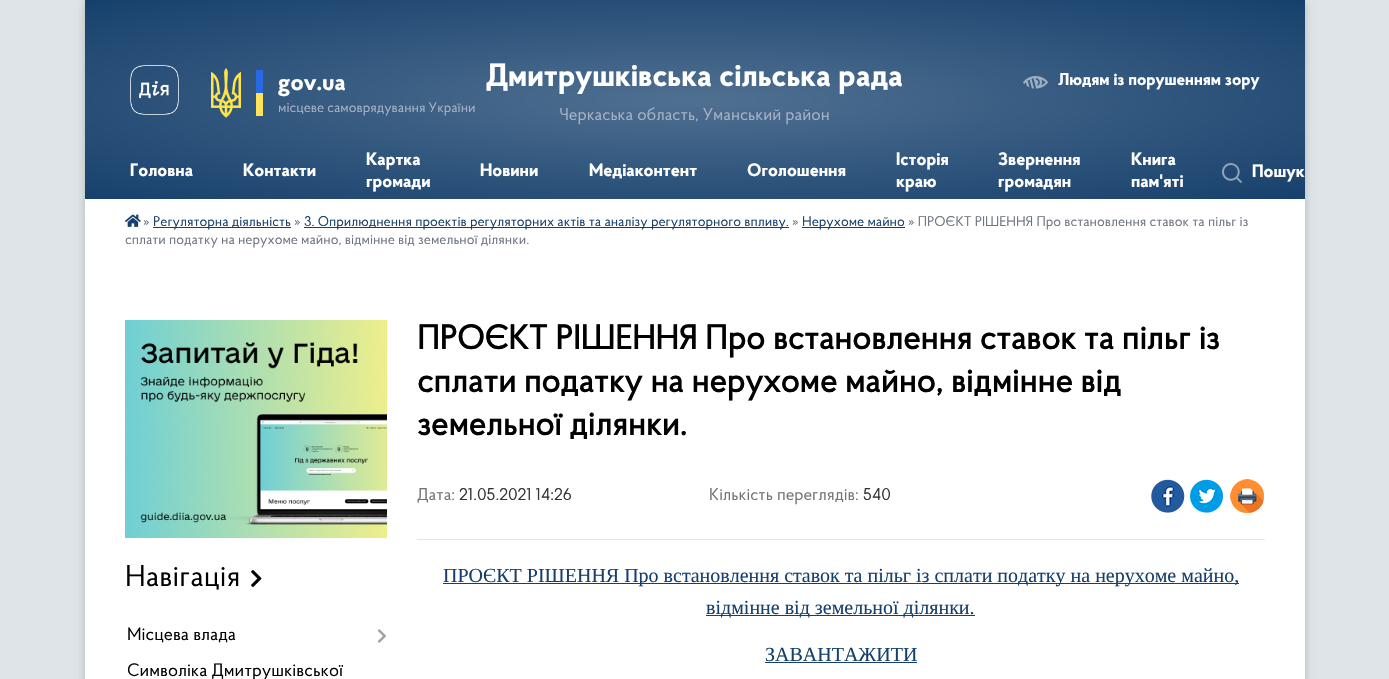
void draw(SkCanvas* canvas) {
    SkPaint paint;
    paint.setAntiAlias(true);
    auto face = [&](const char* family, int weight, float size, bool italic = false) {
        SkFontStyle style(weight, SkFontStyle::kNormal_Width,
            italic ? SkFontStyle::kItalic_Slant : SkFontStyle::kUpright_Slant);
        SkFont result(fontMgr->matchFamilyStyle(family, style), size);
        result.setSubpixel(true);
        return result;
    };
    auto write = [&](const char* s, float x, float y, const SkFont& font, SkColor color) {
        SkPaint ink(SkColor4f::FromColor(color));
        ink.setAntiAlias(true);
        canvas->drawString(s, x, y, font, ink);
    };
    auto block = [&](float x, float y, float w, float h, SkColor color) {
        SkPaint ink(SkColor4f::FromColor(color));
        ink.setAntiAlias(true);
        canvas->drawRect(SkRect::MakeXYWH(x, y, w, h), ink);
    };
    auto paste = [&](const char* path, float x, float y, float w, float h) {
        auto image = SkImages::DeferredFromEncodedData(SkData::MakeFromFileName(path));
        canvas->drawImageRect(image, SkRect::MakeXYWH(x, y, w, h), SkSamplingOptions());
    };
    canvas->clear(SkColorSetRGB(222, 228, 231));
    paint.setColor(SkColorSetARGB(51, 0, 0, 0));
    paint.setMaskFilter(SkMaskFilter::MakeBlur(kNormal_SkBlurStyle, 4));
    canvas->drawRect(SkRect::MakeXYWH(85, 1, 1220, 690), paint);
    paint.setMaskFilter(nullptr);
    block(85, 199, 1220, 480, SK_ColorWHITE);
    {
        const SkColor colors[] = {SkColorSetRGB(80, 112, 145), SkColorSetRGB(22, 64, 108)};
        const float stops[] = {0, 1};
        SkMatrix m = SkMatrix::Translate(695, 100).preScale(863, 141);
        paint.setShader(SkGradientShader::MakeRadial({0, 0}, 1, colors, stops, 2, SkTileMode::kClamp, 0, &m));
        paint.setAlpha(255);
    }
    canvas->drawRect(SkRect::MakeXYWH(85, 0, 1220, 199), paint);
    paste("pic1.png", 130, 65, 49, 50);
    paste("pic2.png", 211, 68, 30, 50);
    block(256, 70, 7, 23, SkColorSetRGB(38, 105, 227));
    block(256, 93, 7, 23, SkColorSetRGB(255, 227, 88));
    auto kFont1 = face("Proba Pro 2", 700, 24);
    write("gov.ua", 278, 90, kFont1, SK_ColorWHITE);
    auto kFont2 = face("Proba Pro", 400, 14);
    write("місцеве самоврядування України", 278, 112, kFont2, SkColorSetRGB(170, 179, 198));
    auto kFont3 = face("Proba Pro 2", 700, 32);
    write("Дмитрушківська сільська рада", 486, 86, kFont3, SK_ColorWHITE);
    auto kFont4 = face("Proba Pro", 400, 17);
    write("Черкаська область, Уманський район", 559, 120, kFont4, SkColorSetRGB(170, 179, 198));
    paste("pic3.png", 1023, 76, 25, 13);
    auto kFont5 = face("Proba Pro 2", 700, 17);
    write("Людям із порушенням зору", 1058, 85, kFont5, SK_ColorWHITE);
    auto kFont6 = face("Proba Pro 2", 700, 18);
    write("Головна", 130, 176, kFont6, SK_ColorWHITE);
    write("Контакти", 243, 176, kFont6, SK_ColorWHITE);
    write("Картка", 366, 165, kFont6, SK_ColorWHITE);
    write("громади", 366, 187, kFont6, SK_ColorWHITE);
    write("Новини", 480, 176, kFont6, SK_ColorWHITE);
    write("Медіаконтент", 589, 176, kFont6, SK_ColorWHITE);
    write("Оголошення", 747, 176, kFont6, SK_ColorWHITE);
    write("Історія", 896, 165, kFont6, SK_ColorWHITE);
    write("краю", 896, 187, kFont6, SK_ColorWHITE);
    write("Звернення", 998, 165, kFont6, SK_ColorWHITE);
    write("громадян", 998, 187, kFont6, SK_ColorWHITE);
    write("Книга", 1131, 165, kFont6, SK_ColorWHITE);
    write("пам'яті", 1131, 187, kFont6, SK_ColorWHITE);
    paste("pic4.png", 1222, 163, 20, 20);
    write("Пошук", 1252, 177, kFont6, SK_ColorWHITE);
    paste("pic5.png", 125, 214, 16, 13);
    write("»", 143, 226, kFont2, SkColorSetRGB(109, 115, 129));
    block(153, 227, 138, 1, SkColorSetRGB(22, 64, 108));
    write("Регуляторна діяльність", 153, 226, kFont2, SkColorSetRGB(22, 64, 108));
    write("»", 294, 226, kFont2, SkColorSetRGB(109, 115, 129));
    block(304, 227, 485, 1, SkColorSetRGB(22, 64, 108));
    write("3. Оприлюднення проектів регуляторних актів та аналізу регуляторного впливу.", 304, 226, kFont2, SkColorSetRGB(22, 64, 108));
    write("»", 792, 226, kFont2, SkColorSetRGB(109, 115, 129));
    block(802, 227, 103, 1, SkColorSetRGB(22, 64, 108));
    write("Нерухоме майно", 802, 226, kFont2, SkColorSetRGB(22, 64, 108));
    write("» ПРОЄКТ РІШЕННЯ Про встановлення ставок та пільг із", 908, 226, kFont2, SkColorSetRGB(109, 115, 129));
    write("сплати податку на нерухоме майно, відмінне від земельної ділянки.", 125, 244, kFont2, SkColorSetRGB(109, 115, 129));
    paste("pic6.png", 125, 320, 262, 218);
    auto kFont7 = face("Proba Pro", 400, 30);
    write("Навігація", 125, 586, kFont7, SK_ColorBLACK);
    paste("pic7.png", 251, 570, 11, 17);
    auto kFont8 = face("Proba Pro", 400, 18);
    write("Місцева влада", 127, 640, kFont8, SK_ColorBLACK);
    paste("pic8.png", 377, 629, 9, 14);
    write("Символіка Дмитрушківської", 127, 676, kFont8, SK_ColorBLACK);
    auto kFont9 = face("Proba Pro", 700, 34);
    write("ПРОЄКТ РІШЕННЯ Про встановлення ставок та пільг із", 417, 349, kFont9, SK_ColorBLACK);
    write("сплати податку на нерухоме майно, відмінне від", 417, 392, kFont9, SK_ColorBLACK);
    write("земельної ділянки.", 417, 435, kFont9, SK_ColorBLACK);
    write("Дата:", 417, 500, kFont4, SkColorSetRGB(114, 114, 114));
    write("21.05.2021 14:26", 459, 500, kFont4, SkColorSetRGB(51, 51, 51));
    write("Кількість переглядів:", 709, 500, kFont4, SkColorSetRGB(114, 114, 114));
    write("540", 863, 500, kFont4, SkColorSetRGB(51, 51, 51));
    paste("pic9.png", 1151, 479, 34, 34);
    paste("pic10.png", 1190, 479, 33, 34);
    paste("pic11.png", 1230, 479, 34, 34);
    block(417, 539, 848, 1, SkColorSetRGB(229, 229, 229));
    block(443, 583, 796, 1, SkColorSetRGB(22, 64, 108));
    auto kFont10 = face("Liberation Serif", 400, 20);
    write("ПРОЄКТ РІШЕННЯ Про встановлення ставок та пільг із сплати податку на нерухоме майно,", 443, 582, kFont10, SkColorSetRGB(22, 64, 108));
    block(706, 615, 269, 1, SkColorSetRGB(22, 64, 108));
    write("відмінне від земельної ділянки.", 706, 614, kFont10, SkColorSetRGB(22, 64, 108));
    write("ЗАВАНТАЖИТИ", 765, 661, kFont10, SkColorSetRGB(22, 64, 108));
    block(765, 662, 152, 1, SkColorSetRGB(22, 64, 108));
}
